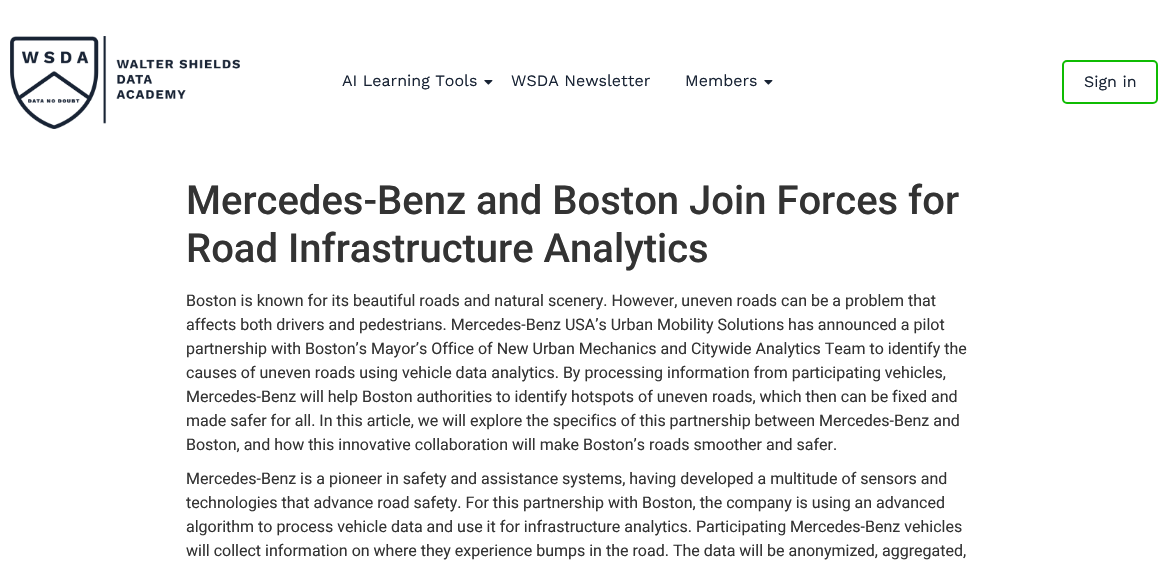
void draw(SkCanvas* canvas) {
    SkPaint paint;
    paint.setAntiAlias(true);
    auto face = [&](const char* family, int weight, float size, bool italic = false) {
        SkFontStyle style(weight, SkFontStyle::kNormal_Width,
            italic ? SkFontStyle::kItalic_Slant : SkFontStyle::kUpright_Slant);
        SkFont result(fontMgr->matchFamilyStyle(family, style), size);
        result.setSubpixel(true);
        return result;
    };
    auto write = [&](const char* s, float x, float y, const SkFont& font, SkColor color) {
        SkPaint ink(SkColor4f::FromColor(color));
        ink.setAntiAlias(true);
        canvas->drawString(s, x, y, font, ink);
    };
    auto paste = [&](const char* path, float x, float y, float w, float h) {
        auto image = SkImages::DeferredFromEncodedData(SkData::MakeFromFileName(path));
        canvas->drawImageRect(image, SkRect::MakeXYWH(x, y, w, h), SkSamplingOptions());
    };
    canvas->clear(SK_ColorWHITE);
    paste("pic1.png", 10, 36, 230, 93);
    auto kFont1 = face("Work Sans", 400, 16);
    write("AI Learning Tools", 342, 86, kFont1, SkColorSetRGB(24, 35, 52));
    paste("pic2.png", 484, 80, 9, 5);
    write("WSDA Newsletter", 511, 86, kFont1, SkColorSetRGB(24, 35, 52));
    write("Members", 685, 86, kFont1, SkColorSetRGB(24, 35, 52));
    paste("pic2.png", 764, 80, 9, 5);
    paint.setStyle(SkPaint::kStroke_Style);
    paint.setStrokeWidth(2);
    paint.setColor(SkColorSetRGB(15, 188, 2));
    canvas->drawRoundRect(SkRect::MakeXYWH(1063, 61, 94, 42), 4, 4, paint);
    write("Sign in", 1084, 87, kFont1, SkColorSetRGB(24, 35, 52));
    auto kFont2 = face("Roboto", 500, 40);
    write("Mercedes-Benz and Boston Join Forces for", 186, 214, kFont2, SkColorSetRGB(51, 51, 51));
    write("Road Infrastructure Analytics", 186, 262, kFont2, SkColorSetRGB(51, 51, 51));
    auto kFont3 = face("Roboto", 400, 16);
    write("Boston is known for its beautiful roads and natural scenery. However, uneven roads can be a problem that", 186, 306, kFont3, SkColorSetRGB(51, 51, 51));
    write("affects both drivers and pedestrians. Mercedes-Benz USA’s Urban Mobility Solutions has announced a pilot", 186, 330, kFont3, SkColorSetRGB(51, 51, 51));
    write("partnership with Boston’s Mayor’s Office of New Urban Mechanics and Citywide Analytics Team to identify the", 186, 354, kFont3, SkColorSetRGB(51, 51, 51));
    write("causes of uneven roads using vehicle data analytics. By processing information from participating vehicles,", 186, 378, kFont3, SkColorSetRGB(51, 51, 51));
    write("Mercedes-Benz will help Boston authorities to identify hotspots of uneven roads, which then can be fixed and", 186, 402, kFont3, SkColorSetRGB(51, 51, 51));
    write("made safer for all. In this article, we will explore the specifics of this partnership between Mercedes-Benz and", 186, 426, kFont3, SkColorSetRGB(51, 51, 51));
    write("Boston, and how this innovative collaboration will make Boston’s roads smoother and safer.", 186, 450, kFont3, SkColorSetRGB(51, 51, 51));
    write("Mercedes-Benz is a pioneer in safety and assistance systems, having developed a multitude of sensors and", 186, 484, kFont3, SkColorSetRGB(51, 51, 51));
    write("technologies that advance road safety. For this partnership with Boston, the company is using an advanced", 186, 508, kFont3, SkColorSetRGB(51, 51, 51));
    write("algorithm to process vehicle data and use it for infrastructure analytics. Participating Mercedes-Benz vehicles", 186, 532, kFont3, SkColorSetRGB(51, 51, 51));
    write("will collect information on where they experience bumps in the road. The data will be anonymized, aggregated,", 186, 556, kFont3, SkColorSetRGB(51, 51, 51));
}
